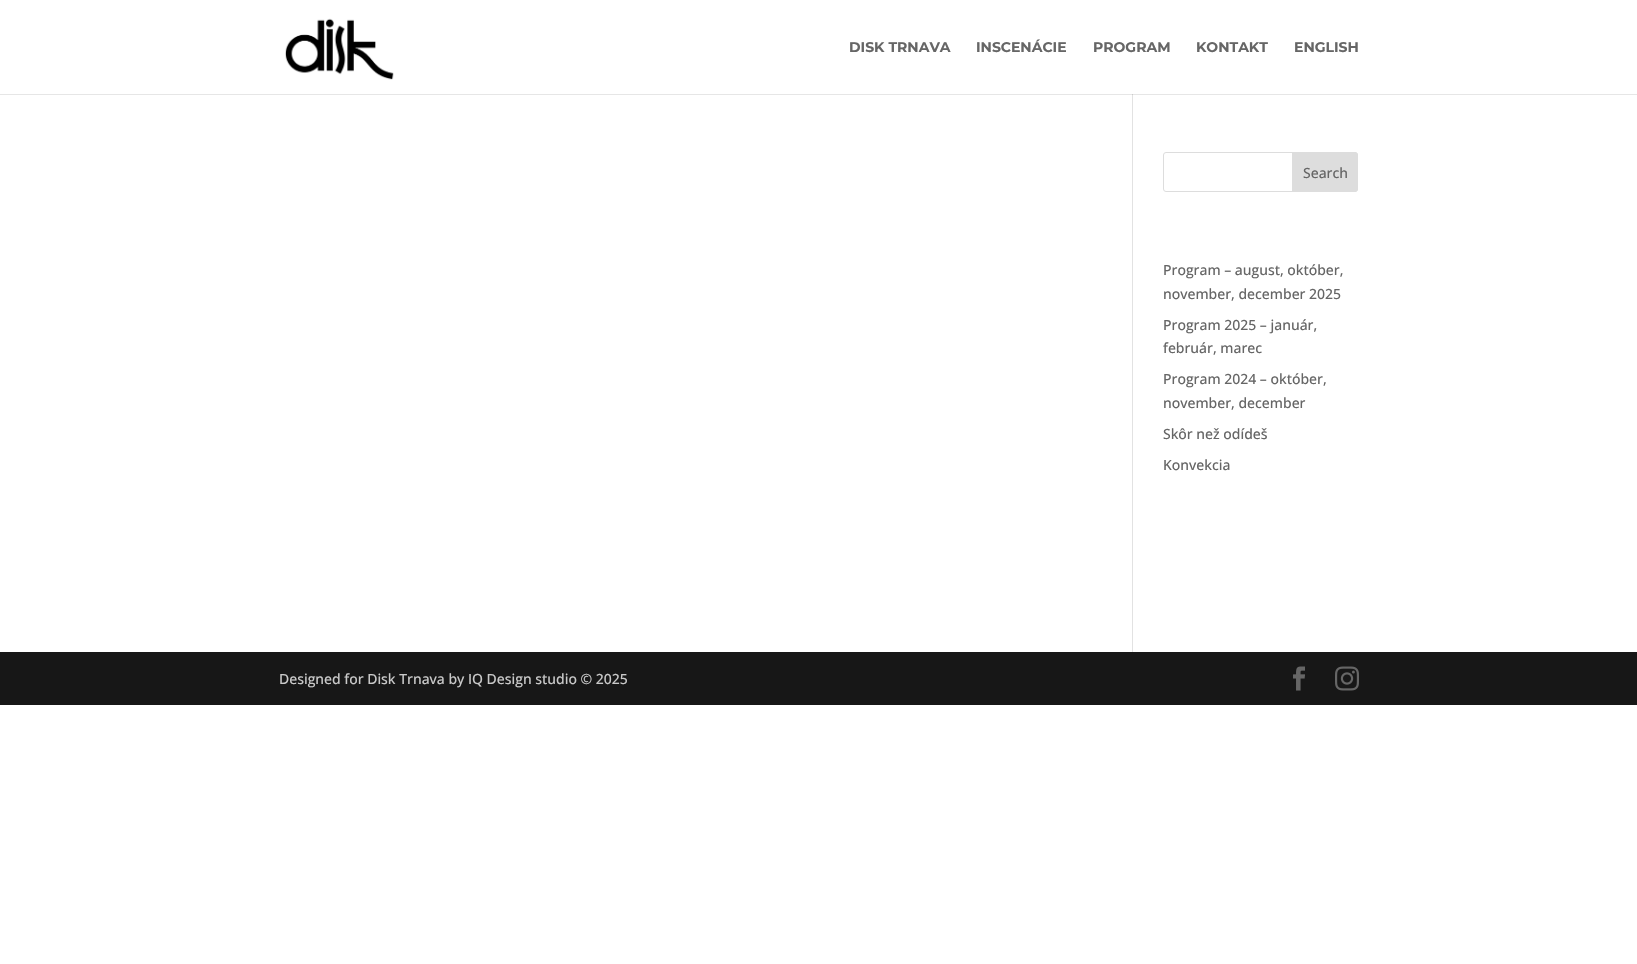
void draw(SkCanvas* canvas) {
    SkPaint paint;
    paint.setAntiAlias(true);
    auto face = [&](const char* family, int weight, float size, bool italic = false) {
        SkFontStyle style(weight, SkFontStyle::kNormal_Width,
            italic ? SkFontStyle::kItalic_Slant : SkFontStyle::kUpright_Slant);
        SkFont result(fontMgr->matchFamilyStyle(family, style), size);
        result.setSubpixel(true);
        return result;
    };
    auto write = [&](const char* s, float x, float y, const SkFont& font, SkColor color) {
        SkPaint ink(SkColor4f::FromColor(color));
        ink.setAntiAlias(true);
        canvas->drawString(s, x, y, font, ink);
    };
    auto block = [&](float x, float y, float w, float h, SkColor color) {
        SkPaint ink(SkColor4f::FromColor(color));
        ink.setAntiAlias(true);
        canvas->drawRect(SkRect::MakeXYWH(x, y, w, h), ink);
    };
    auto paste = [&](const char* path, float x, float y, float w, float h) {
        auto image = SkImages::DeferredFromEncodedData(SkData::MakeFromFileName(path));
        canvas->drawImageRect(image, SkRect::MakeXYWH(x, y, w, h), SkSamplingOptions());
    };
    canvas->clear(SK_ColorWHITE);
    block(0, 94, 1637, 1, SkColorSetRGB(230, 230, 230));
    paste("pic1.png", 285, 18, 109, 62);
    auto kFont1 = face("Montserrat", 700, 14);
    write("DISK TRNAVA", 849, 52, kFont1, SkColorSetRGB(102, 102, 102));
    write("INSCENÁCIE", 976, 52, kFont1, SkColorSetRGB(102, 102, 102));
    write("PROGRAM", 1093, 52, kFont1, SkColorSetRGB(102, 102, 102));
    write("KONTAKT", 1196, 52, kFont1, SkColorSetRGB(102, 102, 102));
    write("ENGLISH", 1294, 52, kFont1, SkColorSetRGB(102, 102, 102));
    block(1132, 94, 1, 558, SkColorSetRGB(226, 226, 226));
    block(1132, 94, 1, 1, SkColorSetRGB(203, 203, 203));
    paint.setStyle(SkPaint::kStroke_Style);
    paint.setStrokeWidth(1);
    paint.setColor(SkColorSetRGB(221, 221, 221));
    canvas->drawRoundRect(SkRect::MakeXYWH(1163.5f, 152.5f, 194, 39), 2.5f, 2.5f, paint);
    paint.setStyle(SkPaint::kFill_Style);
    canvas->drawPath(SkPathBuilder().moveTo(1292.5f, 152.5f).lineTo(1355, 152.5f).cubicTo(1356.5f, 152.5f, 1357.5f, 153.5f, 1357.5f, 155).lineTo(1357.5f, 189).cubicTo(1357.5f, 190.5f, 1356.5f, 191.5f, 1355, 191.5f).lineTo(1292.5f, 191.5f).close().detach(), paint);
    paint.setStyle(SkPaint::kStroke_Style);
    canvas->drawPath(SkPathBuilder().moveTo(1292.5f, 152.5f).lineTo(1355, 152.5f).cubicTo(1356.5f, 152.5f, 1357.5f, 153.5f, 1357.5f, 155).lineTo(1357.5f, 189).cubicTo(1357.5f, 190.5f, 1356.5f, 191.5f, 1355, 191.5f).lineTo(1292.5f, 191.5f).close().detach(), paint);
    auto kFont2 = face("Open Sans", 500, 14);
    write("Search", 1303, 178, kFont2, SkColorSetRGB(102, 102, 102));
    write("Program – august, október,", 1163, 275, kFont2, SkColorSetRGB(102, 102, 102));
    write("november, december 2025", 1163, 299, kFont2, SkColorSetRGB(102, 102, 102));
    write("Program 2025 – január,", 1163, 330, kFont2, SkColorSetRGB(102, 102, 102));
    write("február, marec", 1163, 353, kFont2, SkColorSetRGB(102, 102, 102));
    write("Program 2024 – október,", 1163, 384, kFont2, SkColorSetRGB(102, 102, 102));
    write("november, december", 1163, 408, kFont2, SkColorSetRGB(102, 102, 102));
    write("Skôr než odídeš", 1163, 439, kFont2, SkColorSetRGB(102, 102, 102));
    write("Konvekcia", 1163, 470, kFont2, SkColorSetRGB(102, 102, 102));
    block(0, 652, 1637, 53, SkColorSetRGB(23, 23, 23));
    write("Designed for Disk Trnava by IQ Design studio © 2025", 279, 684, kFont2, SkColorSetRGB(201, 201, 201));
    paste("pic2.png", 1293, 666, 12, 25);
    paste("pic3.png", 1335, 666, 24, 25);
}
